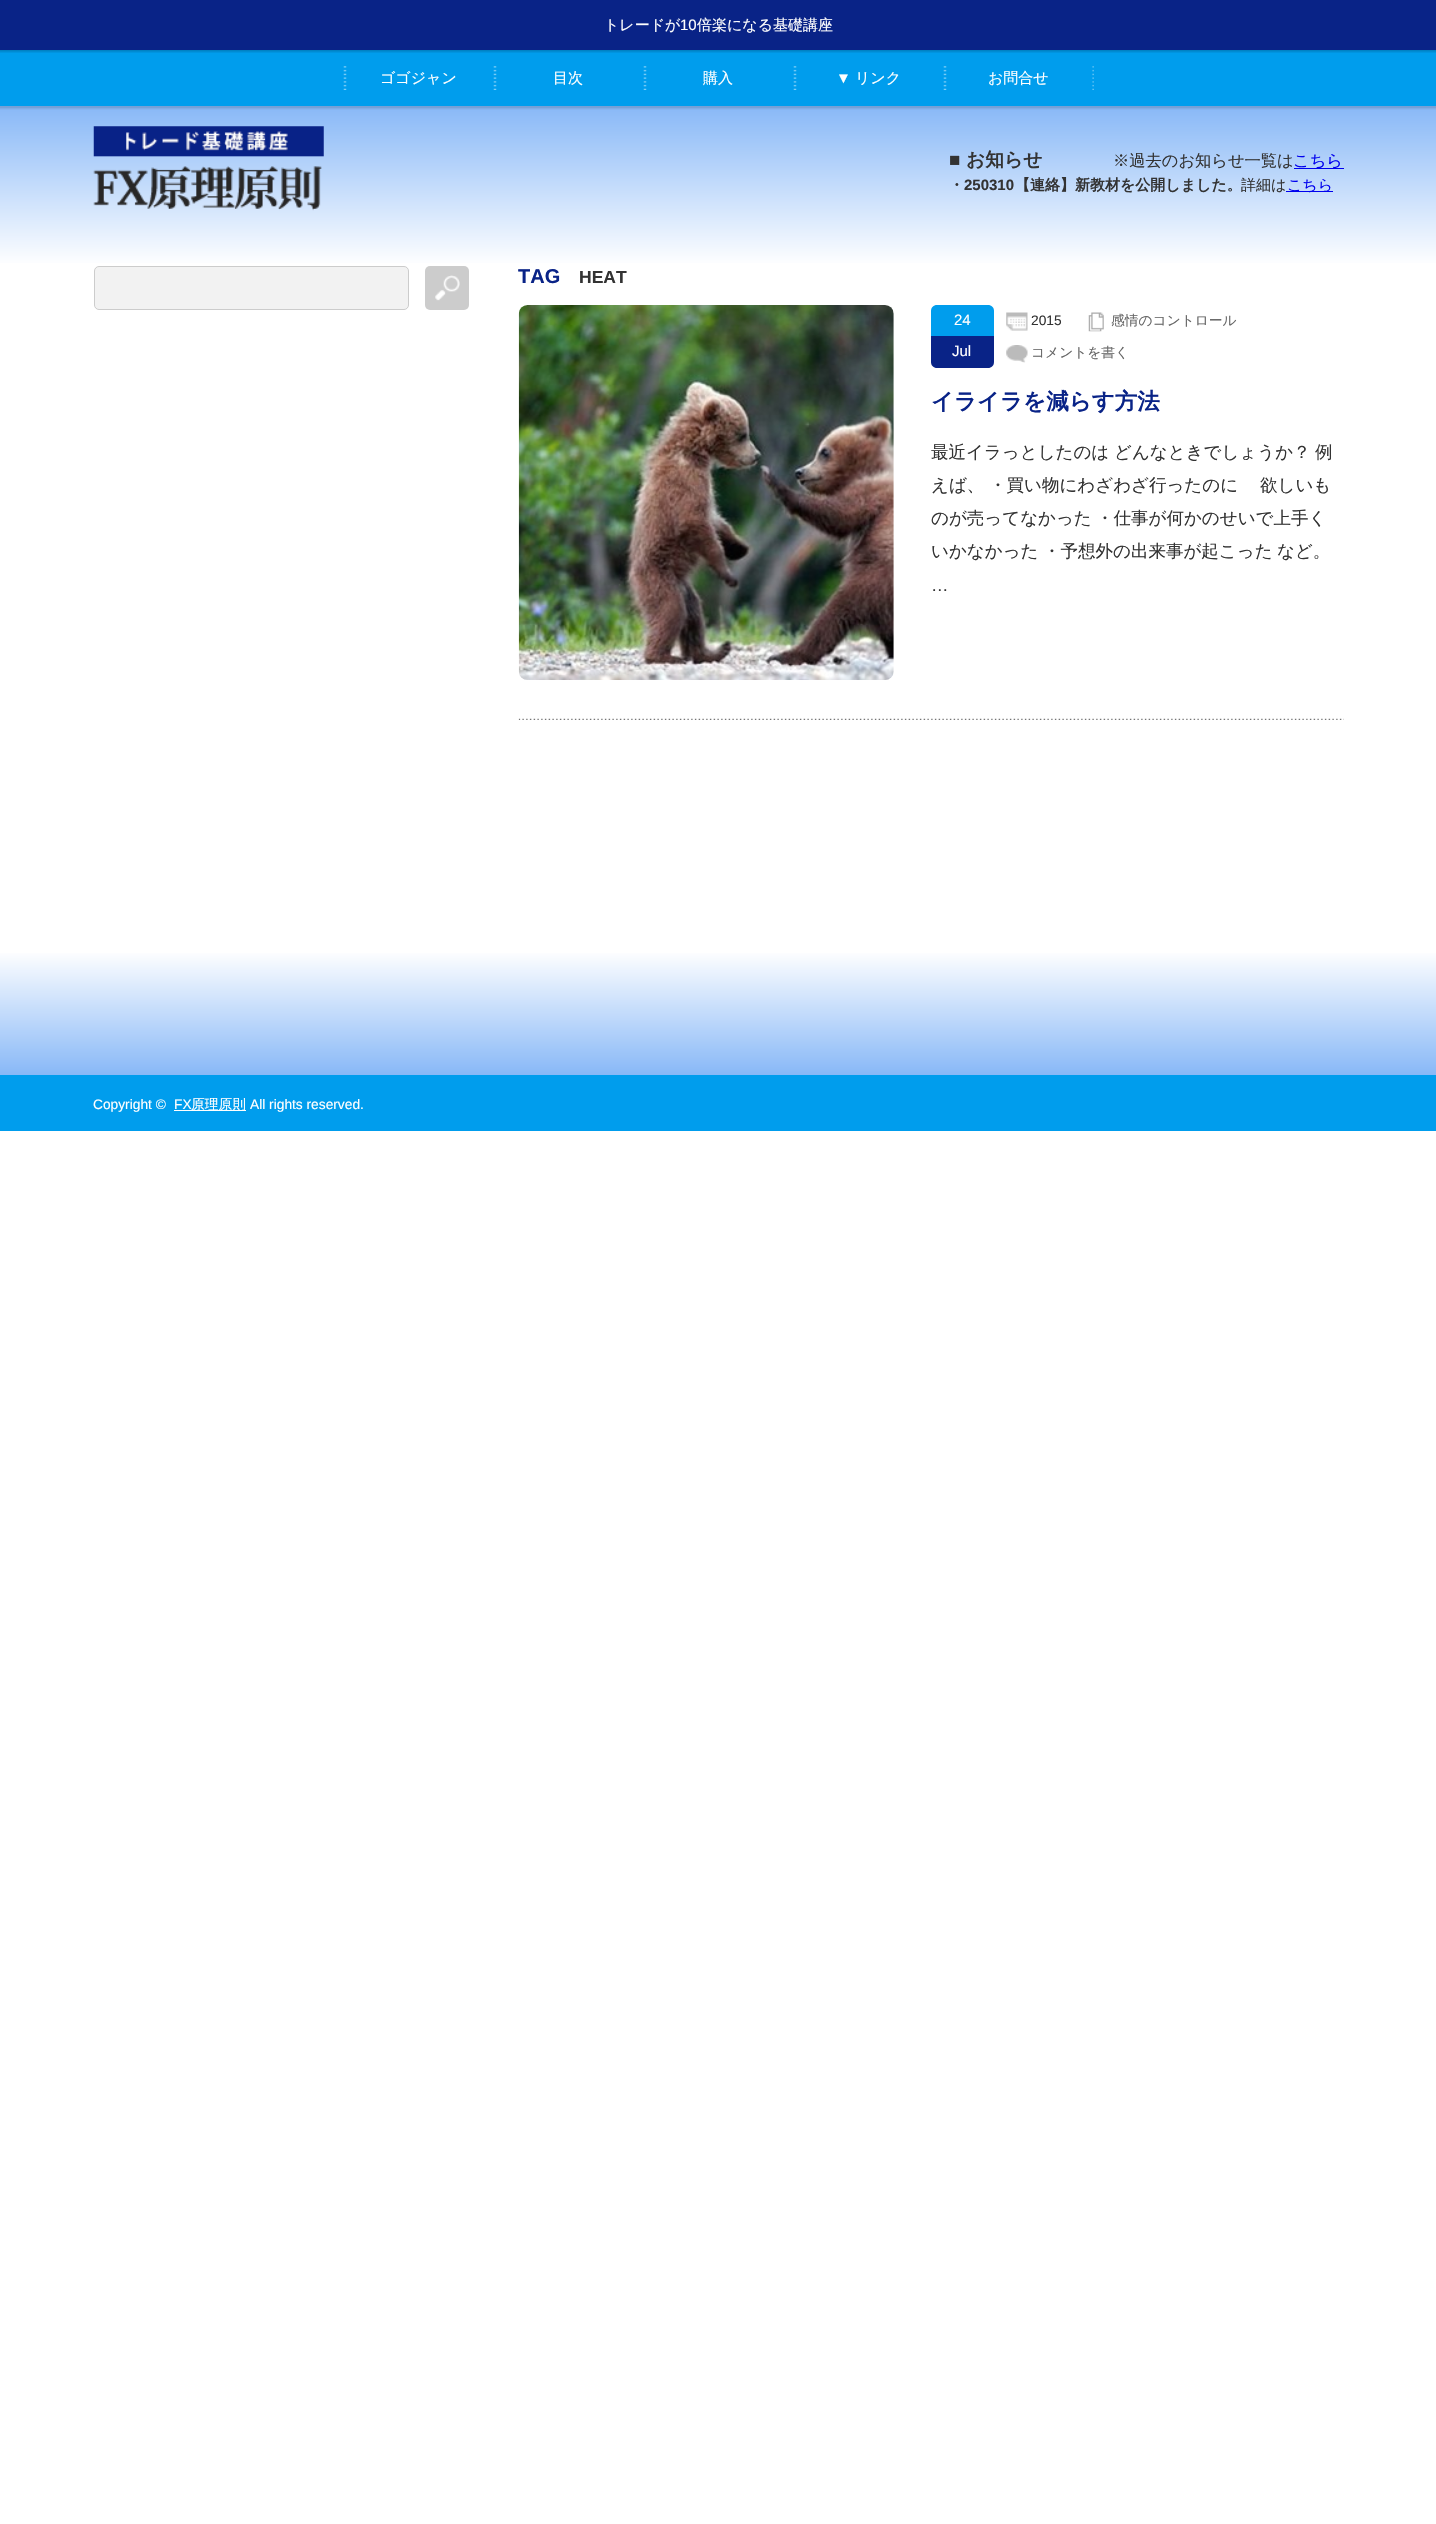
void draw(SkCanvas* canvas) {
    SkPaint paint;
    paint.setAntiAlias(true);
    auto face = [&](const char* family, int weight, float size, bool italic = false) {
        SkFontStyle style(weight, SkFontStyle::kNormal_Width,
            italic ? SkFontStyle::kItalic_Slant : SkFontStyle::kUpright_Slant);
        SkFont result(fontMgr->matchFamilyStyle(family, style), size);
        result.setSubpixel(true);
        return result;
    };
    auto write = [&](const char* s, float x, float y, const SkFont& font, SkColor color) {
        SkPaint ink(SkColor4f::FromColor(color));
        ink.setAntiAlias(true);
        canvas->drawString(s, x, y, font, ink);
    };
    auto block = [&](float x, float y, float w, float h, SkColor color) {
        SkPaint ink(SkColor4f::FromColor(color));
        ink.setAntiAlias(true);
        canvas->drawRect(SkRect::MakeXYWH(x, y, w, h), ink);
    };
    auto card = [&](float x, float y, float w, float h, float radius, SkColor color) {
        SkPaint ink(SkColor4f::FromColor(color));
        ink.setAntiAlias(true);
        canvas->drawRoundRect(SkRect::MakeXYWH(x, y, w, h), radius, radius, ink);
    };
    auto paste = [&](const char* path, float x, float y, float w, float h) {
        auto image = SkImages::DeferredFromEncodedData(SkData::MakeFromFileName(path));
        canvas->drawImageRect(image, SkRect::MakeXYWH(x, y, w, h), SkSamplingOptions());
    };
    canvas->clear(SK_ColorWHITE);
    block(0, 0, 1436, 50, SkColorSetRGB(9, 35, 135));
    auto kFont1 = face("WenQuanYi Zen Hei", 500, 15);
    write("トレードが", 604, 30, kFont1, SK_ColorWHITE);
    auto kFont2 = face("Liberation Sans", 400, 15);
    write("10", 680, 30, kFont2, SK_ColorWHITE);
    write("倍楽になる基礎講座", 697, 30, kFont1, SK_ColorWHITE);
    block(0, 50, 1436, 56, SkColorSetRGB(0, 157, 237));
    paste("pic1.png", 0, 50, 1436, 3);
    paste("pic2.png", 1092, 66, 2, 24);
    paste("pic3.png", 343, 66, 4, 24);
    write("ゴゴジャン", 380, 83, kFont1, SK_ColorWHITE);
    paste("pic3.png", 493, 66, 4, 24);
    write("目次", 553, 83, kFont1, SK_ColorWHITE);
    paste("pic3.png", 643, 66, 4, 24);
    write("購入", 703, 83, kFont1, SK_ColorWHITE);
    paste("pic3.png", 793, 66, 4, 24);
    write("▼", 836, 83, kFont2, SK_ColorWHITE);
    write("リンク", 855, 83, kFont1, SK_ColorWHITE);
    paste("pic3.png", 943, 66, 4, 24);
    write("お問合せ", 988, 83, kFont1, SK_ColorWHITE);
    {
        const SkColor colors[] = {SkColorSetRGB(136, 184, 247), SK_ColorWHITE};
        const float stops[] = {0, 1};
        const SkPoint ends[] = {{718, 106}, {718, 266}};
        paint.setShader(SkGradientShader::MakeLinear(ends, colors, stops, 2, SkTileMode::kClamp));
        paint.setAlpha(255);
    }
    canvas->drawRect(SkRect::MakeXYWH(0, 106, 1436, 157), paint);
    paste("pic4.png", 0, 106, 1436, 4);
    paste("pic5.png", 93, 126, 231, 85);
    auto kFont3 = face("Liberation Sans", 700, 18.75f);
    write("■", 949, 166, kFont3, SkColorSetRGB(51, 51, 51));
    auto kFont4 = face("WenQuanYi Zen Hei", 700, 18.75f);
    write("お知らせ", 966, 166, kFont4, SkColorSetRGB(51, 51, 51));
    auto kFont5 = face("WenQuanYi Zen Hei", 500, 16.25f);
    write("※過去のお知らせ一覧は", 1113, 166, kFont5, SkColorSetRGB(51, 51, 51));
    block(1294, 168, 50, 1, SkColorSetRGB(0, 0, 238));
    write("こちら", 1293, 166, kFont5, SkColorSetRGB(0, 0, 238));
    auto kFont6 = face("WenQuanYi Zen Hei", 700, 15);
    write("・", 949, 190, kFont6, SkColorSetRGB(51, 51, 51));
    auto kFont7 = face("Liberation Sans", 700, 15);
    write("250310", 964, 190, kFont7, SkColorSetRGB(51, 51, 51));
    write("【連絡】新教材を公開しました。", 1015, 190, kFont6, SkColorSetRGB(51, 51, 51));
    write("詳細は", 1241, 190, kFont1, SkColorSetRGB(51, 51, 51));
    block(1286, 191, 47, 1, SkColorSetRGB(0, 0, 238));
    write("こちら", 1287, 190, kFont1, SkColorSetRGB(0, 0, 238));
    paint.setShader(nullptr);
    paint.setColor(SkColorSetRGB(242, 242, 242));
    canvas->drawRoundRect(SkRect::MakeXYWH(94.5f, 266.5f, 314, 43), 4.5f, 4.5f, paint);
    paint.setStyle(SkPaint::kStroke_Style);
    paint.setStrokeWidth(1);
    paint.setColor(SkColorSetRGB(204, 204, 204));
    canvas->drawRoundRect(SkRect::MakeXYWH(94.5f, 266.5f, 314, 43), 4.5f, 4.5f, paint);
    card(425, 266, 44, 44, 5, SkColorSetRGB(204, 204, 204));
    paste("pic6.png", 435, 275, 25, 26);
    auto kFont8 = face("Liberation Sans", 700, 20);
    write("TAG", 518, 283, kFont8, SkColorSetRGB(9, 35, 135));
    auto kFont9 = face("Liberation Sans", 700, 17.5f);
    write("HEAT", 579, 283, kFont9, SkColorSetRGB(51, 51, 51));
    paste("pic7.png", 518, 718, 826, 2);
    paste("pic8.png", 518, 305, 376, 375);
    paint.setStyle(SkPaint::kFill_Style);
    paint.setColor(SkColorSetRGB(0, 157, 237));
    canvas->drawPath(SkPathBuilder().moveTo(937, 305).lineTo(988, 305).cubicTo(991.5f, 305, 994, 307.5f, 994, 311).lineTo(994, 336).lineTo(931, 336).lineTo(931, 311).cubicTo(931, 307.5f, 933.5f, 305, 937, 305).close().detach(), paint);
    write("24", 954, 325, kFont2, SK_ColorWHITE);
    paint.setColor(SkColorSetRGB(9, 35, 135));
    canvas->drawPath(SkPathBuilder().moveTo(931, 336).lineTo(994, 336).lineTo(994, 362).cubicTo(994, 365.5f, 991.5f, 368, 988, 368).lineTo(937, 368).cubicTo(933.5f, 368, 931, 365.5f, 931, 362).close().detach(), paint);
    write("Jul", 952, 356, kFont2, SK_ColorWHITE);
    paste("pic9.png", 1006, 312, 22, 19);
    auto kFont10 = face("Liberation Sans", 400, 13.75f);
    write("2015", 1031, 325, kFont10, SkColorSetRGB(51, 51, 51));
    paste("pic10.png", 1088, 312, 16, 20);
    auto kFont11 = face("WenQuanYi Zen Hei", 500, 13.75f);
    write("感情のコントロール", 1111, 325, kFont11, SkColorSetRGB(102, 102, 102));
    paste("pic11.png", 1006, 345, 22, 18);
    write("コメントを書く", 1031, 357, kFont11, SkColorSetRGB(102, 102, 102));
    auto kFont12 = face("WenQuanYi Zen Hei", 700, 22.5f);
    write("イライラを減らす方法", 931, 409, kFont12, SkColorSetRGB(9, 35, 135));
    auto kFont13 = face("WenQuanYi Zen Hei", 500, 17.5f);
    write("最近イラっとしたのは", 931, 458, kFont13, SkColorSetRGB(51, 51, 51));
    write("どんなときでしょうか？", 1114, 458, kFont13, SkColorSetRGB(51, 51, 51));
    write("例", 1315, 458, kFont13, SkColorSetRGB(51, 51, 51));
    write("えば、", 931, 491, kFont13, SkColorSetRGB(51, 51, 51));
    write("・買い物にわざわざ行ったのに", 989, 491, kFont13, SkColorSetRGB(51, 51, 51));
    write("欲しいも", 1260, 491, kFont13, SkColorSetRGB(51, 51, 51));
    write("のが売ってなかった", 931, 524, kFont13, SkColorSetRGB(51, 51, 51));
    write("・仕事が何かのせいで上手く", 1096, 524, kFont13, SkColorSetRGB(51, 51, 51));
    write("いかなかった", 931, 557, kFont13, SkColorSetRGB(51, 51, 51));
    write("・予想外の出来事が起こった", 1043, 557, kFont13, SkColorSetRGB(51, 51, 51));
    write("など。", 1277, 557, kFont13, SkColorSetRGB(51, 51, 51));
    auto kFont14 = face("Liberation Sans", 400, 17.5f);
    write("…", 931, 591, kFont14, SkColorSetRGB(51, 51, 51));
    block(0, 1075, 1436, 56, SkColorSetRGB(0, 157, 237));
    {
        const SkColor colors[] = {SK_ColorWHITE, SkColorSetRGB(136, 184, 247)};
        const float stops[] = {0, 1};
        const SkPoint ends[] = {{718, 950}, {718, 1075}};
        paint.setShader(SkGradientShader::MakeLinear(ends, colors, stops, 2, SkTileMode::kClamp));
        paint.setAlpha(255);
    }
    canvas->drawRect(SkRect::MakeXYWH(0, 953, 1436, 122), paint);
    write("Copyright ©", 93, 1109, kFont10, SK_ColorWHITE);
    write("FX", 174, 1109, kFont10, SK_ColorWHITE);
    block(174, 1110, 72, 1, SK_ColorWHITE);
    write("原理原則", 191, 1109, kFont11, SK_ColorWHITE);
    write("All rights reserved.", 250, 1109, kFont10, SK_ColorWHITE);
}
